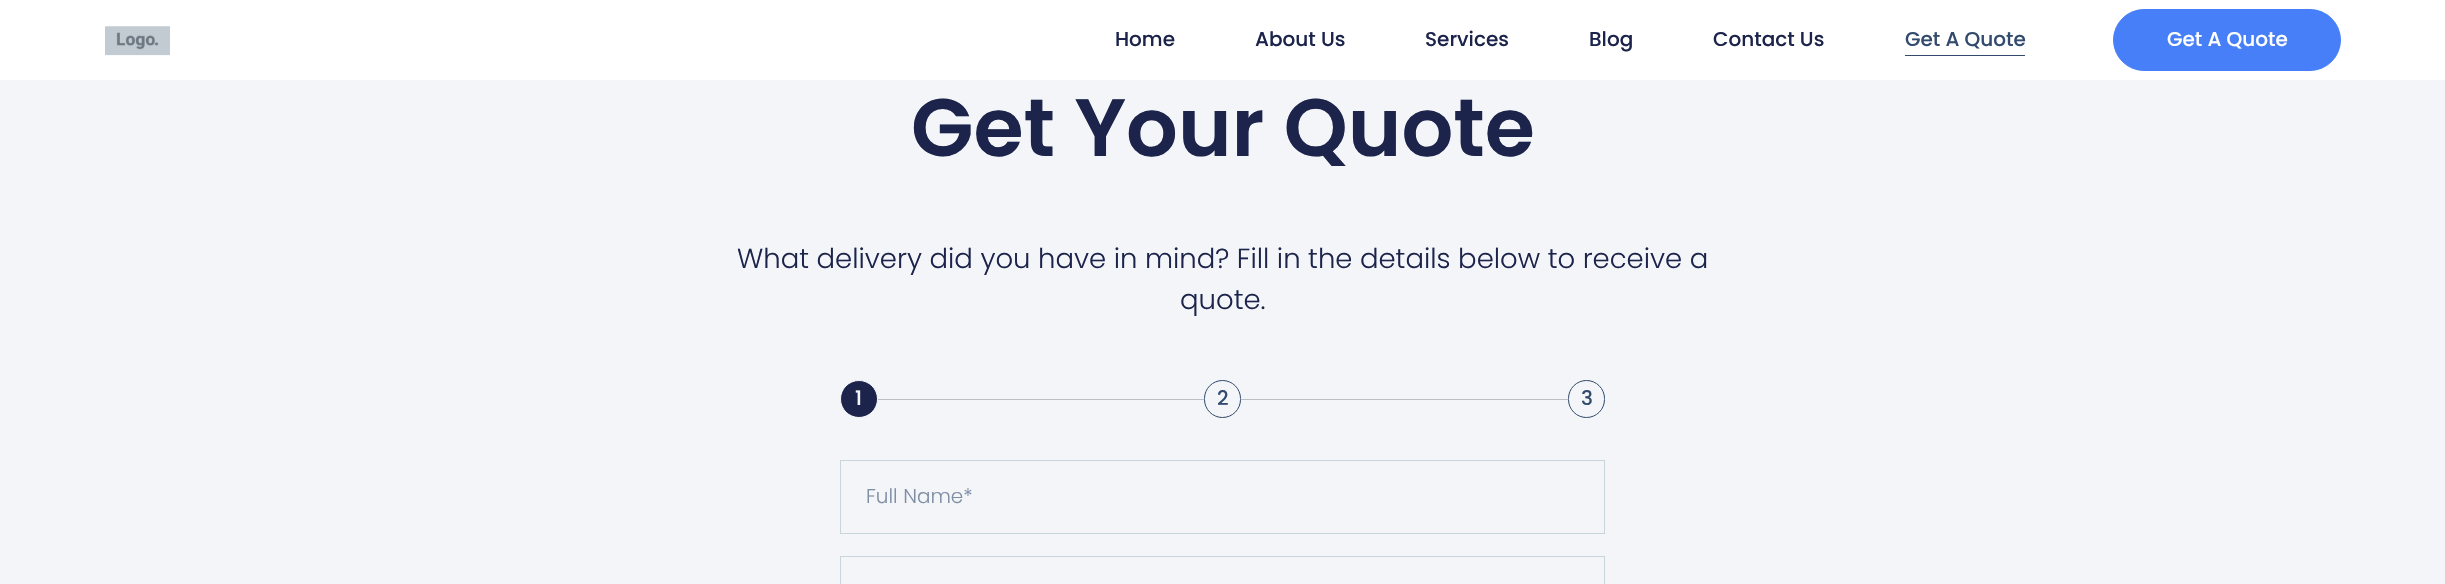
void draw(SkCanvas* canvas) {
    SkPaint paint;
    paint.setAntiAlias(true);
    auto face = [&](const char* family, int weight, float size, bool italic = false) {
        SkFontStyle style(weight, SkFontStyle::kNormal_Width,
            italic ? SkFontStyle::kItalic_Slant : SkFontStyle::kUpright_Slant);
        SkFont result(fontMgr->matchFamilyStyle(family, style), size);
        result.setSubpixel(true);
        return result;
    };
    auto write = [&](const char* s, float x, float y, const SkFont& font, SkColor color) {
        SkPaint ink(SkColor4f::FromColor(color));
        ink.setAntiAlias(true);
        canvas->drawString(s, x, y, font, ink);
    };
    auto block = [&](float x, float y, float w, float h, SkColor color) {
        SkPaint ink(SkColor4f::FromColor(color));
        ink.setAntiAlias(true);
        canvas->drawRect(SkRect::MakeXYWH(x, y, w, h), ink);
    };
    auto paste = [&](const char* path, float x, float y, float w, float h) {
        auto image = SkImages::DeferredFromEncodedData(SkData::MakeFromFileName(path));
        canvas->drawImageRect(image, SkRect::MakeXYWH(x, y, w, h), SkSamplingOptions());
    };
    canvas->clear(SK_ColorWHITE);
    paste("pic1.png", 105, 26, 65, 30);
    auto kFont1 = face("Poppins", 500, 20);
    write("Home", 1115, 46, kFont1, SkColorSetRGB(28, 36, 75));
    write("About Us", 1255, 46, kFont1, SkColorSetRGB(28, 36, 75));
    write("Services", 1425, 46, kFont1, SkColorSetRGB(28, 36, 75));
    write("Blog", 1589, 46, kFont1, SkColorSetRGB(28, 36, 75));
    write("Contact Us", 1713, 46, kFont1, SkColorSetRGB(28, 36, 75));
    write("Get A Quote", 1905, 46, kFont1, SkColorSetRGB(50, 74, 109));
    block(1905, 55, 120, 1, SkColorSetRGB(50, 74, 109));
    paint.setColor(SkColorSetRGB(70, 127, 247));
    canvas->drawRoundRect(SkRect::MakeXYWH(2113.5f, 9.5f, 227, 61), 30.5f, 30.5f, paint);
    paint.setStyle(SkPaint::kStroke_Style);
    paint.setStrokeWidth(1);
    canvas->drawRoundRect(SkRect::MakeXYWH(2113.5f, 9.5f, 227, 61), 30.5f, 30.5f, paint);
    write("Get A Quote", 2167, 46, kFont1, SK_ColorWHITE);
    block(0, 80, 2445, 504, SkColorSetRGB(243, 245, 248));
    auto kFont2 = face("Poppins", 600, 81.25f);
    write("Get Your Quote", 911, 156, kFont2, SkColorSetRGB(28, 36, 75));
    auto kFont3 = face("Poppins", 300, 27.5f);
    write("What delivery did you have in mind? Fill in the details below to receive a", 737, 268, kFont3, SkColorSetRGB(28, 36, 75));
    write("quote.", 1180, 309, kFont3, SkColorSetRGB(28, 36, 75));
    paint.setStyle(SkPaint::kFill_Style);
    paint.setColor(SkColorSetRGB(28, 36, 75));
    canvas->drawCircle(859, 399, 18.5f, paint);
    paint.setStyle(SkPaint::kStroke_Style);
    paint.setColor(SkColorSetRGB(243, 245, 248));
    canvas->drawCircle(859, 399, 18.5f, paint);
    write("1", 855, 405, kFont1, SkColorSetRGB(243, 245, 248));
    block(878, 399, 326, 1, SkColorSetRGB(186, 191, 197));
    paint.setColor(SkColorSetRGB(50, 74, 109));
    canvas->drawRoundRect(SkRect::MakeXYWH(1204.5f, 380.5f, 36, 37), 18, 18, paint);
    write("2", 1217, 405, kFont1, SkColorSetRGB(50, 74, 109));
    block(1241, 399, 327, 1, SkColorSetRGB(186, 191, 197));
    canvas->drawRoundRect(SkRect::MakeXYWH(1568.5f, 380.5f, 36, 37), 18, 18, paint);
    write("3", 1581, 405, kFont1, SkColorSetRGB(50, 74, 109));
    paint.setColor(SkColorSetRGB(200, 213, 220));
    canvas->drawRect(SkRect::MakeXYWH(840.5f, 460.5f, 764, 73), paint);
    auto kFont4 = face("Poppins", 300, 20);
    write("Full Name*", 866, 503, kFont4, SkColorSetRGB(127, 142, 165));
    canvas->drawRect(SkRect::MakeXYWH(840.5f, 556.5f, 764, 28), paint);
}
